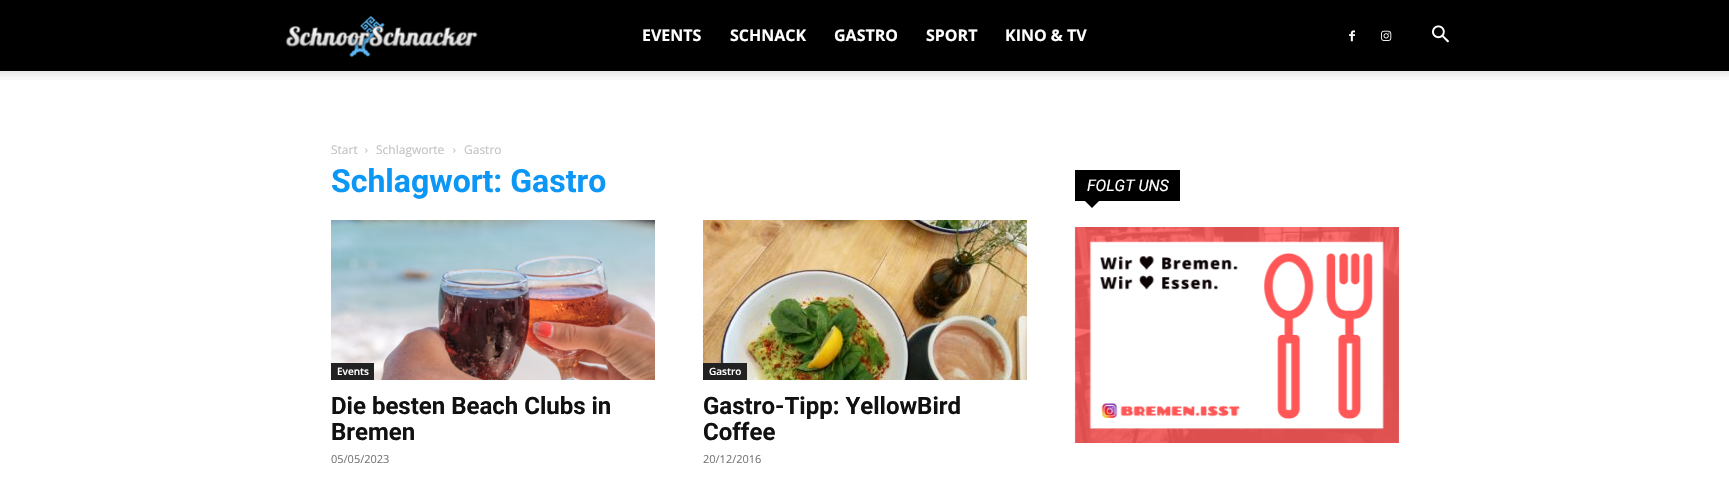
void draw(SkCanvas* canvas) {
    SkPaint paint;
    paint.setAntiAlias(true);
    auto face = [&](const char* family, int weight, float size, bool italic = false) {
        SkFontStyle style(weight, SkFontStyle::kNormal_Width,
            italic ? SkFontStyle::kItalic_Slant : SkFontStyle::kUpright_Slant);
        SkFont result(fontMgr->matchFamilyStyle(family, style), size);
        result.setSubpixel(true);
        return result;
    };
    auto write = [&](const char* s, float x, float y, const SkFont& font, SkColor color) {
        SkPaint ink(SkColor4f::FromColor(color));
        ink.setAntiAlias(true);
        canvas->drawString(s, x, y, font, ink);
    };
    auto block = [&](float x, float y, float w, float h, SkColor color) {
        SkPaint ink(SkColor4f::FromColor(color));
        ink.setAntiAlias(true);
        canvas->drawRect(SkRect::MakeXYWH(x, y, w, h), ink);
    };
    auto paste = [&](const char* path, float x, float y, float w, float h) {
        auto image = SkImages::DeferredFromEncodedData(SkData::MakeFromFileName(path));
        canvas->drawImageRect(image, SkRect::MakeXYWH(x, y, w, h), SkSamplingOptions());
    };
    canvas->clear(SK_ColorWHITE);
    block(0, 0, 1729, 71, SK_ColorBLACK);
    paste("pic1.png", 285, 16, 193, 41);
    auto kFont1 = face("Open Sans", 700, 16);
    write("EVENTS", 642, 41, kFont1, SK_ColorWHITE);
    write("SCHNACK", 730, 41, kFont1, SK_ColorWHITE);
    write("GASTRO", 834, 41, kFont1, SK_ColorWHITE);
    write("SPORT", 926, 41, kFont1, SK_ColorWHITE);
    write("KINO & TV", 1005, 41, kFont1, SK_ColorWHITE);
    paste("pic2.png", 1349, 30, 6, 12);
    paste("pic3.png", 1381, 30, 11, 11);
    paste("pic4.png", 1432, 25, 17, 18);
    paste("pic5.png", 0, 71, 1729, 9);
    auto kFont2 = face("Open Sans", 400, 12);
    write("Start", 331, 154, kFont2, SkColorSetRGB(195, 195, 195));
    paste("pic6.png", 365, 148, 3, 5);
    write("Schlagworte", 376, 154, kFont2, SkColorSetRGB(195, 195, 195));
    paste("pic6.png", 453, 148, 3, 5);
    write("Gastro", 464, 154, kFont2, SkColorSetRGB(195, 195, 195));
    auto kFont3 = face("Roboto", 700, 32);
    write("Schlagwort: Gastro", 331, 192, kFont3, SkColorSetRGB(12, 150, 245));
    paste("pic7.png", 331, 220, 324, 160);
    block(331, 363, 43, 17, SkColorSetRGB(34, 34, 34));
    auto kFont4 = face("Open Sans", 600, 10);
    write("Events", 337, 375, kFont4, SK_ColorWHITE);
    auto kFont5 = face("Roboto", 700, 24);
    write("Die besten Beach Clubs in", 331, 414, kFont5, SkColorSetRGB(17, 17, 17));
    write("Bremen", 331, 440, kFont5, SkColorSetRGB(17, 17, 17));
    auto kFont6 = face("Open Sans", 400, 11);
    write("05/05/2023", 331, 463, kFont6, SkColorSetRGB(118, 118, 118));
    paste("pic8.png", 703, 220, 324, 160);
    block(703, 363, 44, 17, SkColorSetRGB(34, 34, 34));
    write("Gastro", 709, 375, kFont4, SK_ColorWHITE);
    write("Gastro-Tipp: YellowBird", 703, 414, kFont5, SkColorSetRGB(17, 17, 17));
    write("Coffee", 703, 440, kFont5, SkColorSetRGB(17, 17, 17));
    write("20/12/2016", 703, 463, kFont6, SkColorSetRGB(118, 118, 118));
    block(1075, 170, 105, 31, SK_ColorBLACK);
    auto kFont7 = face("Roboto", 400, 16, true);
    write("FOLGT UNS", 1087, 191, kFont7, SK_ColorWHITE);
    paint.setColor(SK_ColorBLACK);
    canvas->drawPath(SkPathBuilder().moveTo(1085, 201).lineTo(1099, 201).lineTo(1092, 208).close().detach(), paint);
    paste("pic9.png", 1074, 227, 325, 216);
}
